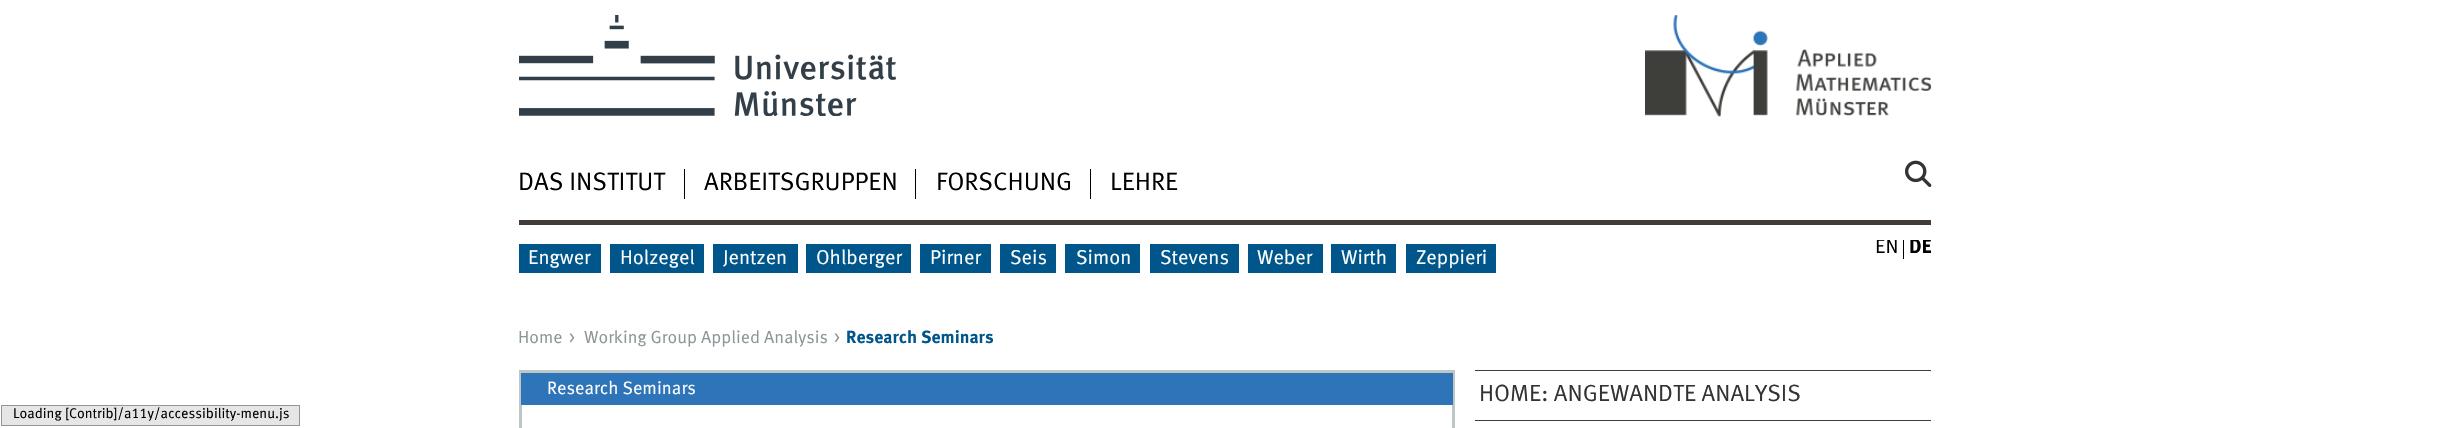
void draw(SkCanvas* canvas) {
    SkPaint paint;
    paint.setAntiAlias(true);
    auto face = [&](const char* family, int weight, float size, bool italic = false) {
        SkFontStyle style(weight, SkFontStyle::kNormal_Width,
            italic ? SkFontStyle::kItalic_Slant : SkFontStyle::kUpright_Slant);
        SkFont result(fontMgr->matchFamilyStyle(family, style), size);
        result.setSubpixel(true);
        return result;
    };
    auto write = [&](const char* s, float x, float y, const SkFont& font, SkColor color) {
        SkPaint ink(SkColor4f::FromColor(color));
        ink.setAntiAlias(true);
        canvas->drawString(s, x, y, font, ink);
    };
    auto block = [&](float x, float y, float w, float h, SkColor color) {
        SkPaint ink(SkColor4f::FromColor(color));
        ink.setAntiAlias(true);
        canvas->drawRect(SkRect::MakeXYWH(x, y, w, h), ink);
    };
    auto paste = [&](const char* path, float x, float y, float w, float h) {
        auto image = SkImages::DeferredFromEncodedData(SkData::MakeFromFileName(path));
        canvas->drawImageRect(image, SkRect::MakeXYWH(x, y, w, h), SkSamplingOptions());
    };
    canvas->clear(SK_ColorWHITE);
    paste("pic1.png", 519, 15, 377, 101);
    paste("pic2.png", 1645, 15, 287, 102);
    block(519, 220, 1412, 5, SkColorSetRGB(66, 60, 57));
    auto kFont1 = face("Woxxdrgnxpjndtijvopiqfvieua", 400, 25.25f);
    write("DAS INSTITUT", 518, 190, kFont1, SK_ColorBLACK);
    block(684, 169, 1, 30, SK_ColorBLACK);
    write("ARBEITSGRUPPEN", 704, 190, kFont1, SK_ColorBLACK);
    block(915, 169, 1, 30, SK_ColorBLACK);
    write("FORSCHUNG", 936, 190, kFont1, SK_ColorBLACK);
    block(1090, 169, 1, 30, SK_ColorBLACK);
    write("LEHRE", 1110, 190, kFont1, SK_ColorBLACK);
    paste("pic3.png", 1905, 160, 27, 27);
    canvas->save();
    canvas->clipRect(SkRect::MakeXYWH(1870, 240, 61, 19));
    auto kFont2 = face("Woxxdrgnxpjndtijvopiqfvieua", 400, 20);
    write("EN", 1875, 253, kFont2, SK_ColorBLACK);
    canvas->restore();
    block(1903, 240, 1, 19, SK_ColorBLACK);
    canvas->save();
    canvas->clipRect(SkRect::MakeXYWH(1870, 240, 61, 19));
    auto kFont3 = face("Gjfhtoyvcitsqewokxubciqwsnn", 700, 20);
    write("DE", 1909, 253, kFont3, SK_ColorBLACK);
    canvas->restore();
    block(519, 244, 82, 29, SkColorSetRGB(0, 86, 138));
    write("Engwer", 528, 264, kFont2, SK_ColorWHITE);
    block(610, 244, 94, 29, SkColorSetRGB(0, 86, 138));
    write("Holzegel", 620, 264, kFont2, SK_ColorWHITE);
    block(713, 244, 85, 29, SkColorSetRGB(0, 86, 138));
    write("Jentzen", 723, 264, kFont2, SK_ColorWHITE);
    block(806, 244, 105, 29, SkColorSetRGB(0, 86, 138));
    write("Ohlberger", 816, 264, kFont2, SK_ColorWHITE);
    block(920, 244, 71, 29, SkColorSetRGB(0, 86, 138));
    write("Pirner", 930, 264, kFont2, SK_ColorWHITE);
    block(1000, 244, 56, 29, SkColorSetRGB(0, 86, 138));
    write("Seis", 1010, 264, kFont2, SK_ColorWHITE);
    block(1065, 244, 75, 29, SkColorSetRGB(0, 86, 138));
    write("Simon", 1076, 264, kFont2, SK_ColorWHITE);
    block(1150, 244, 89, 29, SkColorSetRGB(0, 86, 138));
    write("Stevens", 1160, 264, kFont2, SK_ColorWHITE);
    block(1248, 244, 75, 29, SkColorSetRGB(0, 86, 138));
    write("Weber", 1257, 264, kFont2, SK_ColorWHITE);
    block(1331, 244, 65, 29, SkColorSetRGB(0, 86, 138));
    write("Wirth", 1341, 264, kFont2, SK_ColorWHITE);
    block(1406, 244, 90, 29, SkColorSetRGB(0, 86, 138));
    write("Zeppieri", 1416, 264, kFont2, SK_ColorWHITE);
    auto kFont4 = face("Woxxdrgnxpjndtijvopiqfvieua", 400, 17.6f);
    write("Home", 518, 343, kFont4, SkColorSetRGB(140, 149, 152));
    write(">", 569, 343, kFont4, SkColorSetRGB(140, 149, 152));
    write("Working Group Applied Analysis", 584, 343, kFont4, SkColorSetRGB(140, 149, 152));
    write(">", 834, 343, kFont4, SkColorSetRGB(140, 149, 152));
    auto kFont5 = face("Gjfhtoyvcitsqewokxubciqwsnn", 700, 17.6f);
    write("Research Seminars", 846, 343, kFont5, SkColorSetRGB(0, 86, 138));
    paint.setStyle(SkPaint::kStroke_Style);
    paint.setStrokeWidth(3);
    paint.setColor(SkColorSetRGB(190, 198, 200));
    canvas->drawRect(SkRect::MakeXYWH(520.5f, 371.5f, 933, 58), paint);
    block(521, 373, 932, 32, SkColorSetRGB(46, 116, 184));
    auto kFont6 = face("Woxxdrgnxpjndtijvopiqfvieua", 400, 18);
    write("Research Seminars", 547, 394, kFont6, SK_ColorWHITE);
    block(1475, 370, 456, 1, SkColorSetRGB(66, 60, 57));
    auto kFont7 = face("Woxxdrgnxpjndtijvopiqfvieua", 400, 23.5f);
    write("HOME: ANGEWANDTE ANALYSIS", 1479, 401, kFont7, SkColorSetRGB(51, 51, 51));
    block(1475, 420, 456, 1, SkColorSetRGB(66, 60, 57));
    paint.setStyle(SkPaint::kFill_Style);
    paint.setColor(SkColorSetRGB(230, 230, 230));
    canvas->drawRect(SkRect::MakeXYWH(1.5f, 405.5f, 298, 20), paint);
    paint.setStyle(SkPaint::kStroke_Style);
    paint.setStrokeWidth(1);
    paint.setColor(SkColorSetRGB(149, 149, 149));
    canvas->drawRect(SkRect::MakeXYWH(1.5f, 405.5f, 298, 20), paint);
    auto kFont8 = face("Woxxdrgnxpjndtijvopiqfvieua", 400, 14.1f);
    write("Loading [Contrib]/a11y/accessibility-menu.js", 13, 418, kFont8, SK_ColorBLACK);
}
